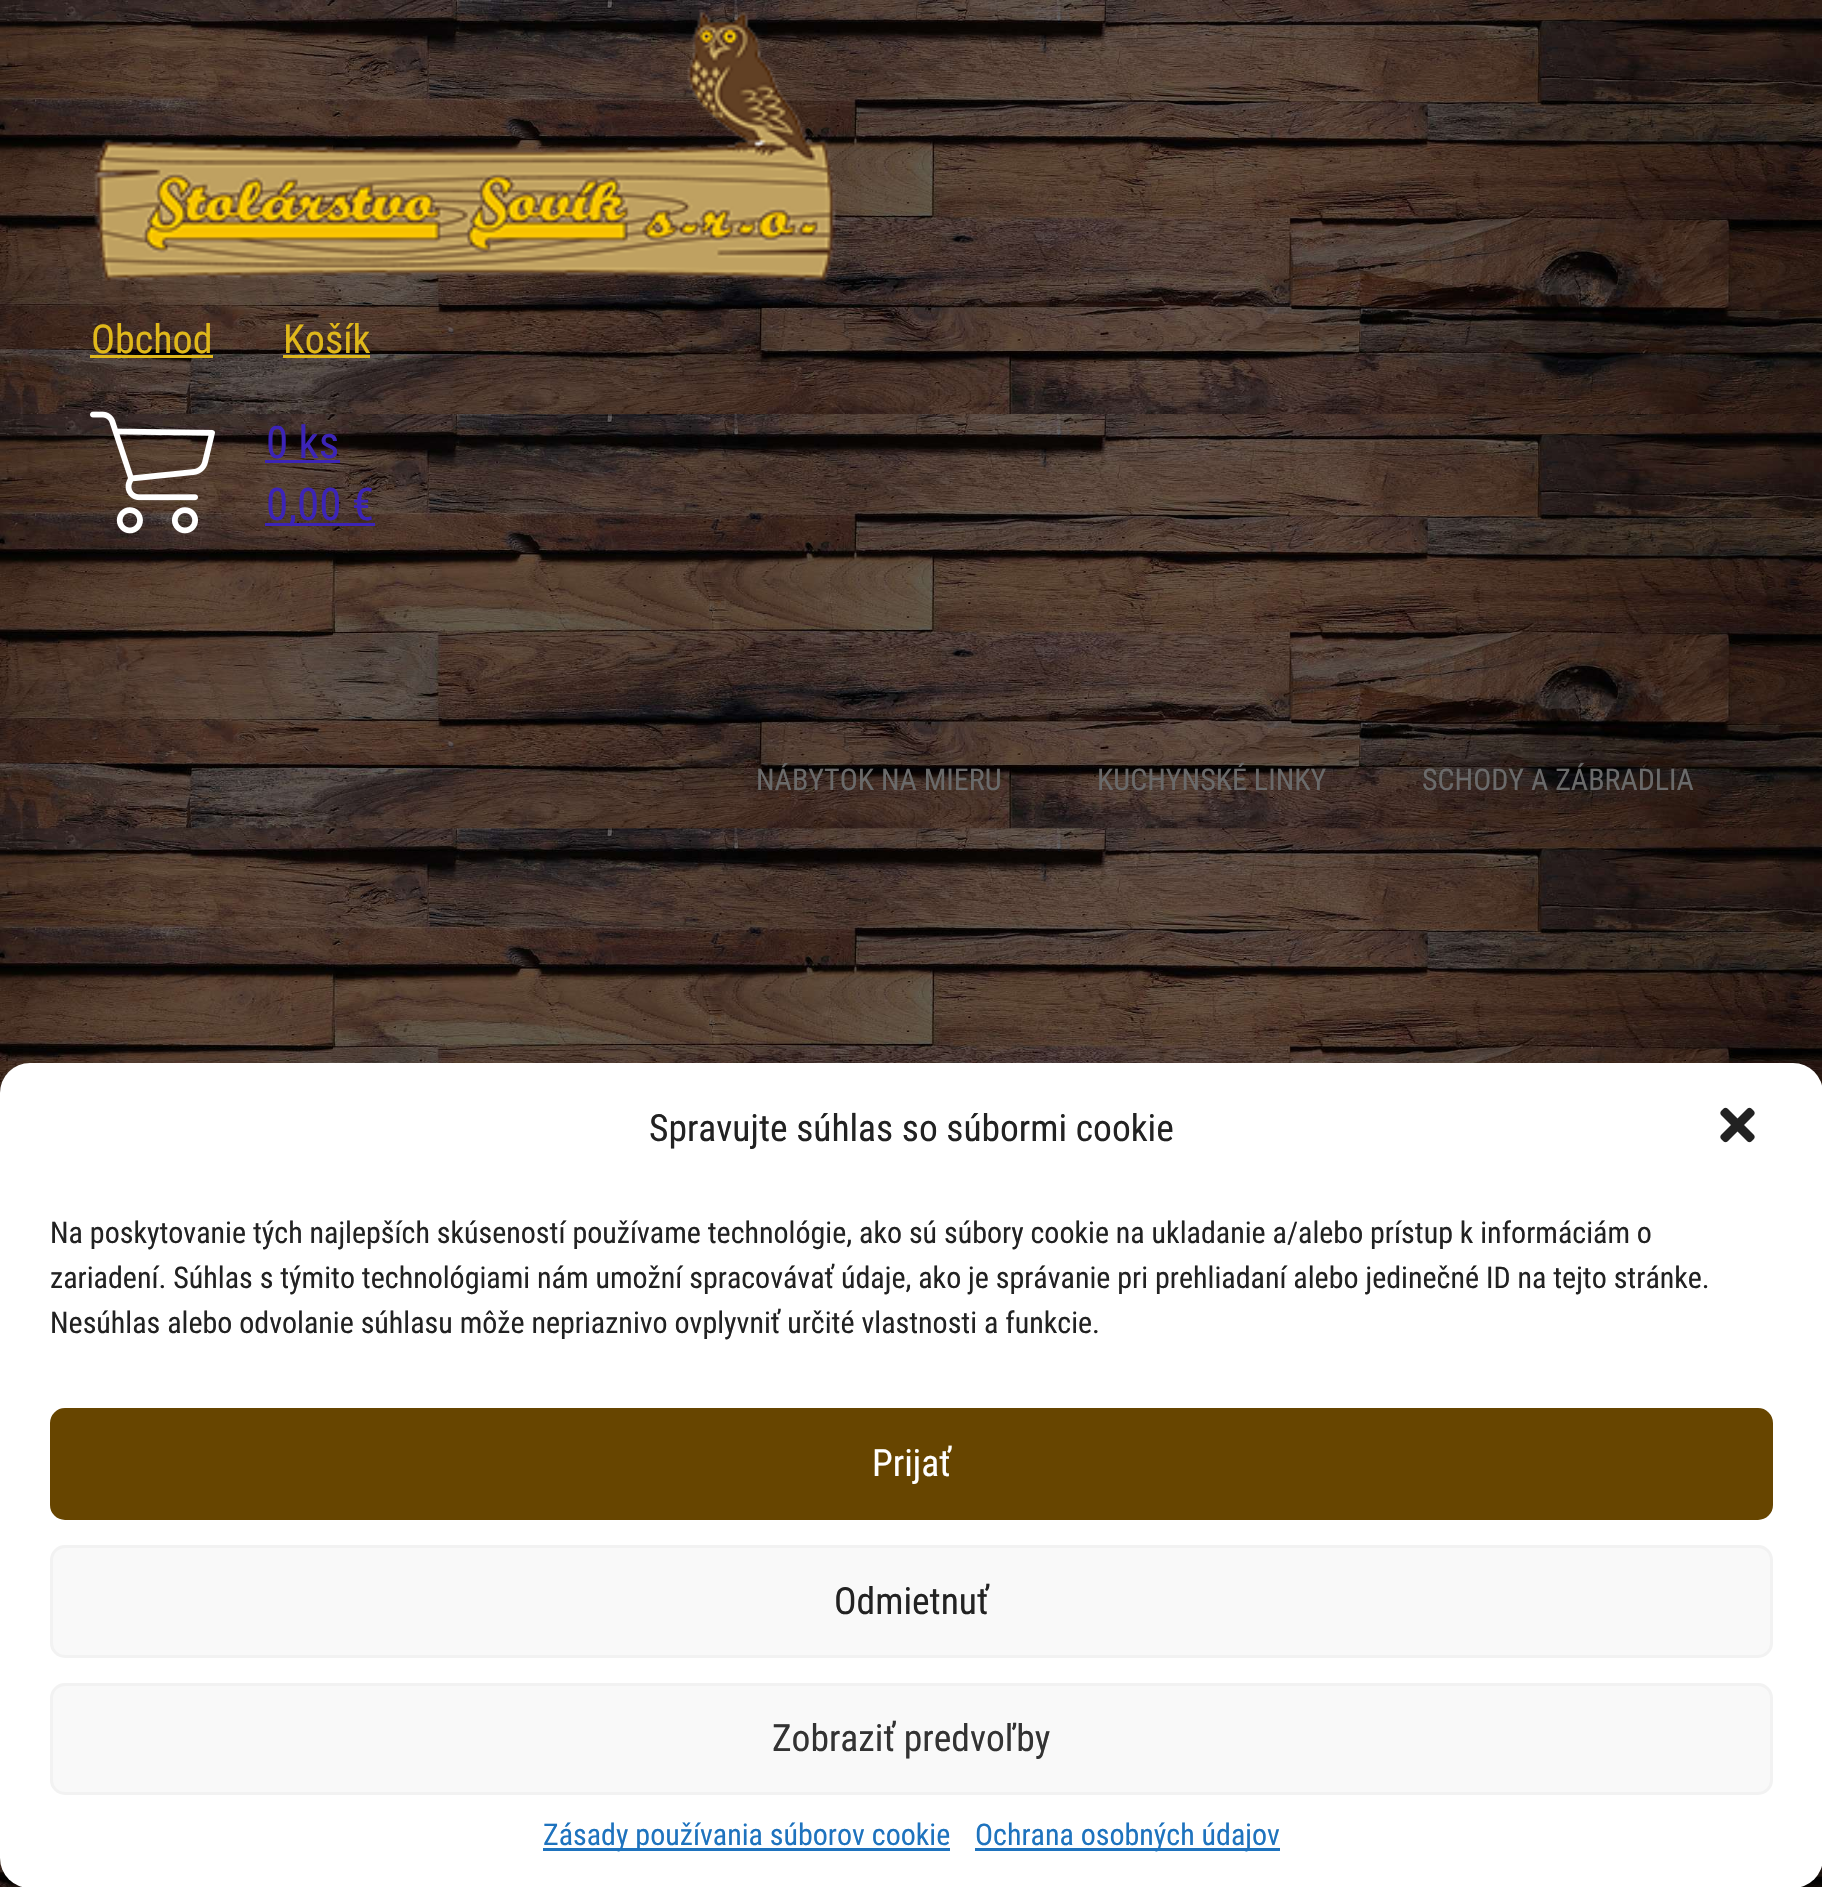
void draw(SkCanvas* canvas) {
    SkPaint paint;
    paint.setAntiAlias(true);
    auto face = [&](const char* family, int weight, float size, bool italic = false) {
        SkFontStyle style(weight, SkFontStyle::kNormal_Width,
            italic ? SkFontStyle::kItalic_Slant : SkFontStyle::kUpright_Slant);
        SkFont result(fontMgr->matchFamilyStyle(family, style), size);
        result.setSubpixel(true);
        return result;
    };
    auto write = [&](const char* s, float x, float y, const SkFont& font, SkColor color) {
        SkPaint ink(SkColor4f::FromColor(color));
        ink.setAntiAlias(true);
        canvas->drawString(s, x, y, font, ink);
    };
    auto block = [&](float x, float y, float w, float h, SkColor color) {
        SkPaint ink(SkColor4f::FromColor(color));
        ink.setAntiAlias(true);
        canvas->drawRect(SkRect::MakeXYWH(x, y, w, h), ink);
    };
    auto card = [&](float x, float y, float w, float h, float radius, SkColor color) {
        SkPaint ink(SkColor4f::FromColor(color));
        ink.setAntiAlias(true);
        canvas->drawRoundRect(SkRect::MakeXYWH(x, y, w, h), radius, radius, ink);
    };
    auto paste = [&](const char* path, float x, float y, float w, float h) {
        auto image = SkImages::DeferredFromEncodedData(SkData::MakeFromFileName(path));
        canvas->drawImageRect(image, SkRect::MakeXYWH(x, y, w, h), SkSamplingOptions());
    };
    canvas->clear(SK_ColorWHITE);
    paste("pic1.png", 0, 0, 1822, 1887);
    paste("pic2.png", 94, 10, 742, 271);
    auto kFont1 = face("Roboto Condensed", 400, 40);
    write("Obchod", 91, 353, kFont1, SkColorSetRGB(224, 184, 26));
    block(90, 355, 123, 3, SkColorSetRGB(224, 184, 26));
    write("Košík", 283, 353, kFont1, SkColorSetRGB(224, 184, 26));
    block(283, 355, 87, 3, SkColorSetRGB(224, 184, 26));
    paste("pic3.png", 90, 411, 125, 123);
    auto kFont2 = face("Roboto Condensed", 400, 45);
    write("0 ks", 266, 458, kFont2, SkColorSetRGB(60, 36, 183));
    block(265, 460, 75, 3, SkColorSetRGB(60, 36, 183));
    block(265, 523, 110, 3, SkColorSetRGB(60, 36, 183));
    write("0,00 €", 266, 520, kFont2, SkColorSetRGB(60, 36, 183));
    auto kFont3 = face("Roboto Condensed", 400, 30);
    write("NÁBYTOK NA MIERU", 756, 790, kFont3, SkColorSetRGB(106, 106, 106));
    write("KUCHYNSKÉ LINKY", 1097, 790, kFont3, SkColorSetRGB(106, 106, 106));
    write("SCHODY A ZÁBRADLIA", 1422, 790, kFont3, SkColorSetRGB(106, 106, 106));
    paint.setColor(SkColorSetARGB(59, 0, 0, 0));
    paint.setMaskFilter(SkMaskFilter::MakeBlur(kNormal_SkBlurStyle, 7.5f));
    canvas->drawRoundRect(SkRect::MakeXYWH(0, 1078, 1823, 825), 30, 30, paint);
    paint.setMaskFilter(nullptr);
    paint.setColor(SkColorSetARGB(48, 0, 0, 0));
    paint.setMaskFilter(SkMaskFilter::MakeBlur(kNormal_SkBlurStyle, 25));
    canvas->drawRoundRect(SkRect::MakeXYWH(0, 1088, 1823, 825), 30, 30, paint);
    paint.setMaskFilter(nullptr);
    card(0, 1063, 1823, 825, 30, SK_ColorWHITE);
    auto kFont4 = face("Roboto Condensed", 400, 37.5f);
    write("Spravujte súhlas so súbormi cookie", 649, 1141, kFont4, SkColorSetRGB(34, 34, 34));
    paste("pic4.png", 1720, 1107, 35, 36);
    write("Na poskytovanie tých najlepších skúseností používame technológie, ako sú súbory cookie na ukladanie a/alebo prístup k informáciám o", 50, 1243, kFont3, SkColorSetRGB(34, 34, 34));
    write("zariadení. Súhlas s týmito technológiami nám umožní spracovávať údaje, ako je správanie pri prehliadaní alebo jedinečné ID na tejto stránke.", 50, 1288, kFont3, SkColorSetRGB(34, 34, 34));
    write("Nesúhlas alebo odvolanie súhlasu môže nepriaznivo ovplyvniť určité vlastnosti a funkcie.", 50, 1333, kFont3, SkColorSetRGB(34, 34, 34));
    paint.setColor(SkColorSetRGB(103, 69, 0));
    canvas->drawRoundRect(SkRect::MakeXYWH(51.5f, 1409.5f, 1720, 109), 13.5f, 13.5f, paint);
    paint.setStyle(SkPaint::kStroke_Style);
    paint.setStrokeWidth(3);
    canvas->drawRoundRect(SkRect::MakeXYWH(51.5f, 1409.5f, 1720, 109), 13.5f, 13.5f, paint);
    write("Prijať", 872, 1476, kFont4, SK_ColorWHITE);
    paint.setStyle(SkPaint::kFill_Style);
    paint.setColor(SkColorSetRGB(249, 249, 249));
    canvas->drawRoundRect(SkRect::MakeXYWH(51.5f, 1546.5f, 1720, 110), 13.5f, 13.5f, paint);
    paint.setStyle(SkPaint::kStroke_Style);
    paint.setColor(SkColorSetRGB(242, 242, 242));
    canvas->drawRoundRect(SkRect::MakeXYWH(51.5f, 1546.5f, 1720, 110), 13.5f, 13.5f, paint);
    write("Odmietnuť", 834, 1614, kFont4, SkColorSetRGB(34, 34, 34));
    paint.setStyle(SkPaint::kFill_Style);
    paint.setColor(SkColorSetRGB(249, 249, 249));
    canvas->drawRoundRect(SkRect::MakeXYWH(51.5f, 1684.5f, 1720, 109), 13.5f, 13.5f, paint);
    paint.setStyle(SkPaint::kStroke_Style);
    paint.setColor(SkColorSetRGB(242, 242, 242));
    canvas->drawRoundRect(SkRect::MakeXYWH(51.5f, 1684.5f, 1720, 109), 13.5f, 13.5f, paint);
    write("Zobraziť predvoľby", 772, 1751, kFont4, SkColorSetRGB(51, 51, 51));
    block(543, 1848, 407, 3, SkColorSetRGB(30, 115, 190));
    write("Zásady používania súborov cookie", 543, 1845, kFont3, SkColorSetRGB(30, 115, 190));
    block(975, 1848, 305, 3, SkColorSetRGB(30, 115, 190));
    write("Ochrana osobných údajov", 975, 1845, kFont3, SkColorSetRGB(30, 115, 190));
}
